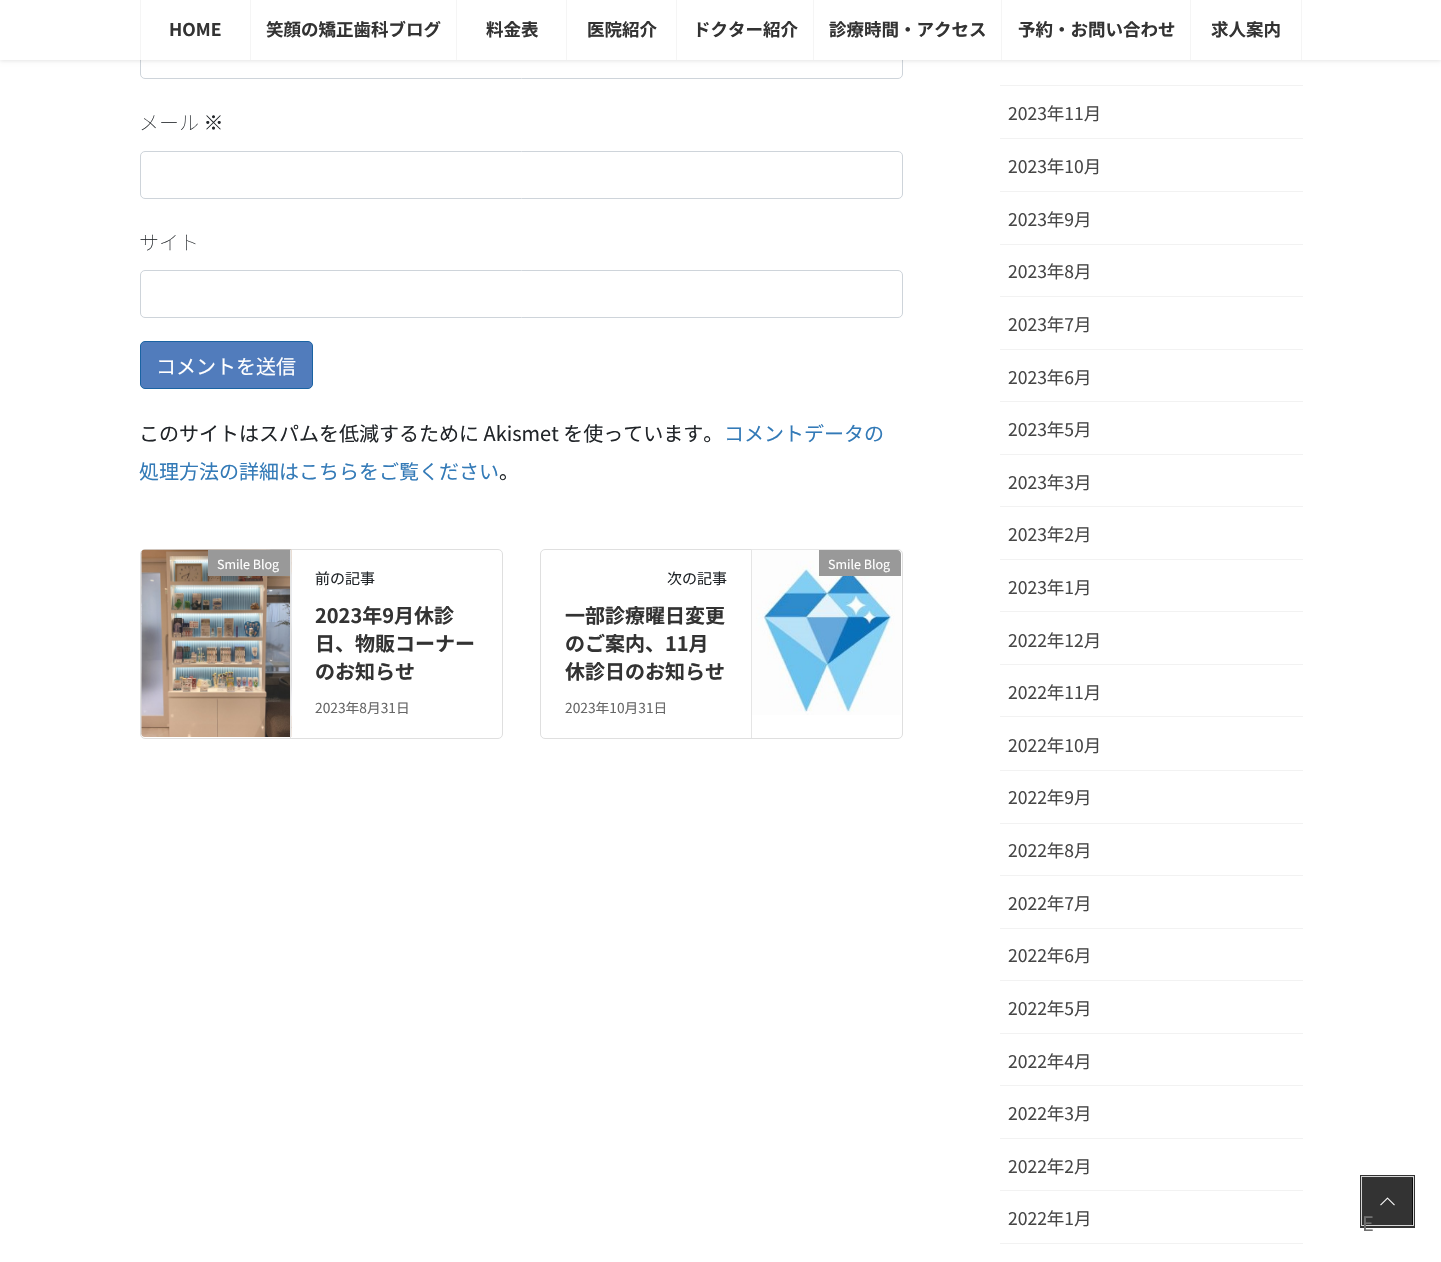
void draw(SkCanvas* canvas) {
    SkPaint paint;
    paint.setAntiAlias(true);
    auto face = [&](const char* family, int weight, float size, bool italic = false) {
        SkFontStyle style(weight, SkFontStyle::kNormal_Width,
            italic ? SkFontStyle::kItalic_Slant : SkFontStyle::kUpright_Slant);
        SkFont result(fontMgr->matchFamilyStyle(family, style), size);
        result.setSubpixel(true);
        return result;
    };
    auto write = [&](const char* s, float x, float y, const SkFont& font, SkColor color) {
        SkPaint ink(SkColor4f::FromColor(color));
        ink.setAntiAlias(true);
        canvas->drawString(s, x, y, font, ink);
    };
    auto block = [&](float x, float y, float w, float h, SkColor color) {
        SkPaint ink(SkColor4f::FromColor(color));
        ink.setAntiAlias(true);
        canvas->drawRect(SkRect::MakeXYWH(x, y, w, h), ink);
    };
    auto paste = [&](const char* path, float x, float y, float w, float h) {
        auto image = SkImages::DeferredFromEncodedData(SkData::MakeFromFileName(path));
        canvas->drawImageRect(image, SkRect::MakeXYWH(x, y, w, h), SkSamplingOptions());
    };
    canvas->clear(SK_ColorWHITE);
    paint.setStyle(SkPaint::kStroke_Style);
    paint.setStrokeWidth(1);
    paint.setColor(SkColorSetRGB(206, 212, 218));
    canvas->drawRoundRect(SkRect::MakeXYWH(140.5f, 31.5f, 762, 47), 4.5f, 4.5f, paint);
    paint.setStyle(SkPaint::kFill_Style);
    paint.setColor(SkColorSetARGB(26, 0, 0, 0));
    paint.setMaskFilter(SkMaskFilter::MakeBlur(kNormal_SkBlurStyle, 2));
    canvas->drawRect(SkRect::MakeXYWH(0, 1, 1441, 60), paint);
    paint.setMaskFilter(nullptr);
    block(0, 0, 1441, 60, SK_ColorWHITE);
    block(140, 0, 1, 60, SkColorSetRGB(245, 245, 245));
    auto kFont1 = face("Noto Sans JP", 700, 17.5f);
    write("HOME", 169, 36, kFont1, SkColorSetRGB(51, 51, 51));
    block(250, 0, 1, 60, SkColorSetRGB(245, 245, 245));
    write("笑顔の矯正歯科ブログ", 266, 36, kFont1, SkColorSetRGB(51, 51, 51));
    block(456, 0, 1, 60, SkColorSetRGB(245, 245, 245));
    write("料金表", 486, 36, kFont1, SkColorSetRGB(51, 51, 51));
    block(566, 0, 1, 60, SkColorSetRGB(245, 245, 245));
    write("医院紹介", 587, 36, kFont1, SkColorSetRGB(51, 51, 51));
    block(676, 0, 1, 60, SkColorSetRGB(245, 245, 245));
    write("ドクター紹介", 693, 36, kFont1, SkColorSetRGB(51, 51, 51));
    block(813, 0, 1, 60, SkColorSetRGB(245, 245, 245));
    write("診療時間・アクセス", 829, 36, kFont1, SkColorSetRGB(51, 51, 51));
    block(1001, 0, 1, 60, SkColorSetRGB(245, 245, 245));
    write("予約・お問い合わせ", 1018, 36, kFont1, SkColorSetRGB(51, 51, 51));
    block(1301, 0, 1, 60, SkColorSetRGB(245, 245, 245));
    block(1190, 0, 1, 60, SkColorSetRGB(245, 245, 245));
    write("求人案内", 1211, 36, kFont1, SkColorSetRGB(51, 51, 51));
    auto kFont2 = face("Noto Sans JP", 100, 20);
    write("メール ※", 139, 130, kFont2, SkColorSetRGB(33, 37, 41));
    paint.setStyle(SkPaint::kStroke_Style);
    paint.setColor(SkColorSetRGB(206, 212, 218));
    canvas->drawRoundRect(SkRect::MakeXYWH(140.5f, 151.5f, 762, 47), 4.5f, 4.5f, paint);
    write("サイト", 139, 250, kFont2, SkColorSetRGB(33, 37, 41));
    canvas->drawRoundRect(SkRect::MakeXYWH(140.5f, 270.5f, 762, 47), 4.5f, 4.5f, paint);
    paint.setStyle(SkPaint::kFill_Style);
    paint.setColor(SkColorSetRGB(81, 124, 188));
    canvas->drawRoundRect(SkRect::MakeXYWH(140.5f, 341.5f, 172, 47), 4.5f, 4.5f, paint);
    paint.setStyle(SkPaint::kStroke_Style);
    paint.setColor(SkColorSetRGB(26, 99, 163));
    canvas->drawRoundRect(SkRect::MakeXYWH(140.5f, 341.5f, 172, 47), 4.5f, 4.5f, paint);
    auto kFont3 = face("Noto Sans JP", 400, 20);
    write("コメントを送信", 156, 374, kFont3, SK_ColorWHITE);
    write("このサイトはスパムを低減するために Akismet を使っています。", 139, 441, kFont3, SkColorSetRGB(33, 37, 41));
    write("コメントデータの", 724, 441, kFont3, SkColorSetRGB(51, 122, 183));
    write("処理方法の詳細はこちらをご覧ください", 139, 479, kFont3, SkColorSetRGB(51, 122, 183));
    write("。", 499, 479, kFont3, SkColorSetRGB(33, 37, 41));
    paint.setColor(SkColorSetRGB(223, 223, 223));
    canvas->drawRoundRect(SkRect::MakeXYWH(140.5f, 549.5f, 362, 189), 4.5f, 4.5f, paint);
    paste("pic1.png", 141, 549, 151, 188);
    block(290, 550, 1, 188, SkColorSetRGB(229, 229, 229));
    block(208, 550, 82, 26, SkColorSetRGB(153, 153, 153));
    auto kFont4 = face("Noto Sans JP", 400, 12.5f);
    write("Smile Blog", 217, 569, kFont4, SK_ColorWHITE);
    auto kFont5 = face("Noto Sans JP", 400, 15);
    write("前の記事", 315, 584, kFont5, SkColorSetRGB(33, 37, 41));
    auto kFont6 = face("Noto Sans JP", 700, 20);
    write("2023年9月休診", 315, 623, kFont6, SkColorSetRGB(51, 51, 51));
    write("日、物販コーナー", 315, 651, kFont6, SkColorSetRGB(51, 51, 51));
    write("のお知らせ", 315, 679, kFont6, SkColorSetRGB(51, 51, 51));
    auto kFont7 = face("Noto Sans JP", 400, 13.75f);
    write("2023年8月31日", 315, 713, kFont7, SkColorSetRGB(102, 102, 102));
    canvas->drawRoundRect(SkRect::MakeXYWH(540.5f, 549.5f, 362, 189), 4.5f, 4.5f, paint);
    paste("pic2.png", 751, 549, 150, 166);
    block(751, 550, 1, 188, SkColorSetRGB(229, 229, 229));
    paint.setStyle(SkPaint::kFill_Style);
    paint.setColor(SkColorSetRGB(153, 153, 153));
    canvas->drawPath(SkPathBuilder().moveTo(819, 550).lineTo(897, 550).cubicTo(899, 550, 901, 552, 901, 554).lineTo(901, 576).lineTo(819, 576).close().detach(), paint);
    write("Smile Blog", 828, 569, kFont4, SK_ColorWHITE);
    write("次の記事", 667, 584, kFont5, SkColorSetRGB(33, 37, 41));
    write("一部診療曜日変更", 565, 623, kFont6, SkColorSetRGB(51, 51, 51));
    write("のご案内、11月", 565, 651, kFont6, SkColorSetRGB(51, 51, 51));
    write("休診日のお知らせ", 565, 679, kFont6, SkColorSetRGB(51, 51, 51));
    write("2023年10月31日", 565, 713, kFont7, SkColorSetRGB(102, 102, 102));
    block(1000, 85, 303, 1, SkColorSetRGB(242, 242, 242));
    block(1000, 138, 303, 1, SkColorSetRGB(242, 242, 242));
    auto kFont8 = face("Noto Sans JP", 400, 17.5f);
    write("2023年11月", 1008, 120, kFont8, SkColorSetRGB(70, 70, 70));
    block(1000, 191, 303, 1, SkColorSetRGB(242, 242, 242));
    write("2023年10月", 1008, 173, kFont8, SkColorSetRGB(70, 70, 70));
    block(1000, 244, 303, 1, SkColorSetRGB(242, 242, 242));
    write("2023年9月", 1008, 226, kFont8, SkColorSetRGB(70, 70, 70));
    block(1000, 296, 303, 1, SkColorSetRGB(242, 242, 242));
    write("2023年8月", 1008, 278, kFont8, SkColorSetRGB(70, 70, 70));
    block(1000, 349, 303, 1, SkColorSetRGB(242, 242, 242));
    write("2023年7月", 1008, 331, kFont8, SkColorSetRGB(70, 70, 70));
    block(1000, 401, 303, 1, SkColorSetRGB(242, 242, 242));
    write("2023年6月", 1008, 384, kFont8, SkColorSetRGB(70, 70, 70));
    block(1000, 454, 303, 1, SkColorSetRGB(242, 242, 242));
    write("2023年5月", 1008, 436, kFont8, SkColorSetRGB(70, 70, 70));
    block(1000, 506, 303, 1, SkColorSetRGB(242, 242, 242));
    write("2023年3月", 1008, 489, kFont8, SkColorSetRGB(70, 70, 70));
    block(1000, 559, 303, 1, SkColorSetRGB(242, 242, 242));
    write("2023年2月", 1008, 541, kFont8, SkColorSetRGB(70, 70, 70));
    block(1000, 611, 303, 1, SkColorSetRGB(242, 242, 242));
    write("2023年1月", 1008, 594, kFont8, SkColorSetRGB(70, 70, 70));
    block(1000, 664, 303, 1, SkColorSetRGB(242, 242, 242));
    write("2022年12月", 1008, 647, kFont8, SkColorSetRGB(70, 70, 70));
    block(1000, 716, 303, 1, SkColorSetRGB(242, 242, 242));
    write("2022年11月", 1008, 699, kFont8, SkColorSetRGB(70, 70, 70));
    block(1000, 770, 303, 1, SkColorSetRGB(242, 242, 242));
    write("2022年10月", 1008, 752, kFont8, SkColorSetRGB(70, 70, 70));
    block(1000, 823, 303, 1, SkColorSetRGB(242, 242, 242));
    write("2022年9月", 1008, 804, kFont8, SkColorSetRGB(70, 70, 70));
    block(1000, 875, 303, 1, SkColorSetRGB(242, 242, 242));
    write("2022年8月", 1008, 857, kFont8, SkColorSetRGB(70, 70, 70));
    block(1000, 928, 303, 1, SkColorSetRGB(242, 242, 242));
    write("2022年7月", 1008, 910, kFont8, SkColorSetRGB(70, 70, 70));
    block(1000, 980, 303, 1, SkColorSetRGB(242, 242, 242));
    write("2022年6月", 1008, 962, kFont8, SkColorSetRGB(70, 70, 70));
    block(1000, 1033, 303, 1, SkColorSetRGB(242, 242, 242));
    write("2022年5月", 1008, 1015, kFont8, SkColorSetRGB(70, 70, 70));
    block(1000, 1085, 303, 1, SkColorSetRGB(242, 242, 242));
    write("2022年4月", 1008, 1068, kFont8, SkColorSetRGB(70, 70, 70));
    block(1000, 1138, 303, 1, SkColorSetRGB(242, 242, 242));
    write("2022年3月", 1008, 1120, kFont8, SkColorSetRGB(70, 70, 70));
    block(1000, 1190, 303, 1, SkColorSetRGB(242, 242, 242));
    write("2022年2月", 1008, 1173, kFont8, SkColorSetRGB(70, 70, 70));
    block(1000, 1243, 303, 1, SkColorSetRGB(242, 242, 242));
    write("2022年1月", 1008, 1225, kFont8, SkColorSetRGB(70, 70, 70));
    paint.setStyle(SkPaint::kStroke_Style);
    paint.setStrokeWidth(3);
    paint.setColor(SkColorSetRGB(51, 51, 51));
    canvas->drawRect(SkRect::MakeXYWH(1361.5f, 1176.5f, 52, 50), paint);
    paint.setStrokeWidth(1);
    paint.setColor(SkColorSetRGB(214, 214, 214));
    canvas->drawRect(SkRect::MakeXYWH(1361.5f, 1176.5f, 52, 49), paint);
    block(1363, 1178, 50, 47, SkColorSetARGB(204, 0, 0, 0));
    paste("pic3.png", 1380, 1197, 15, 9);
    write("E", 1362, 1231, kFont3, SkColorSetRGB(111, 111, 111));
}
